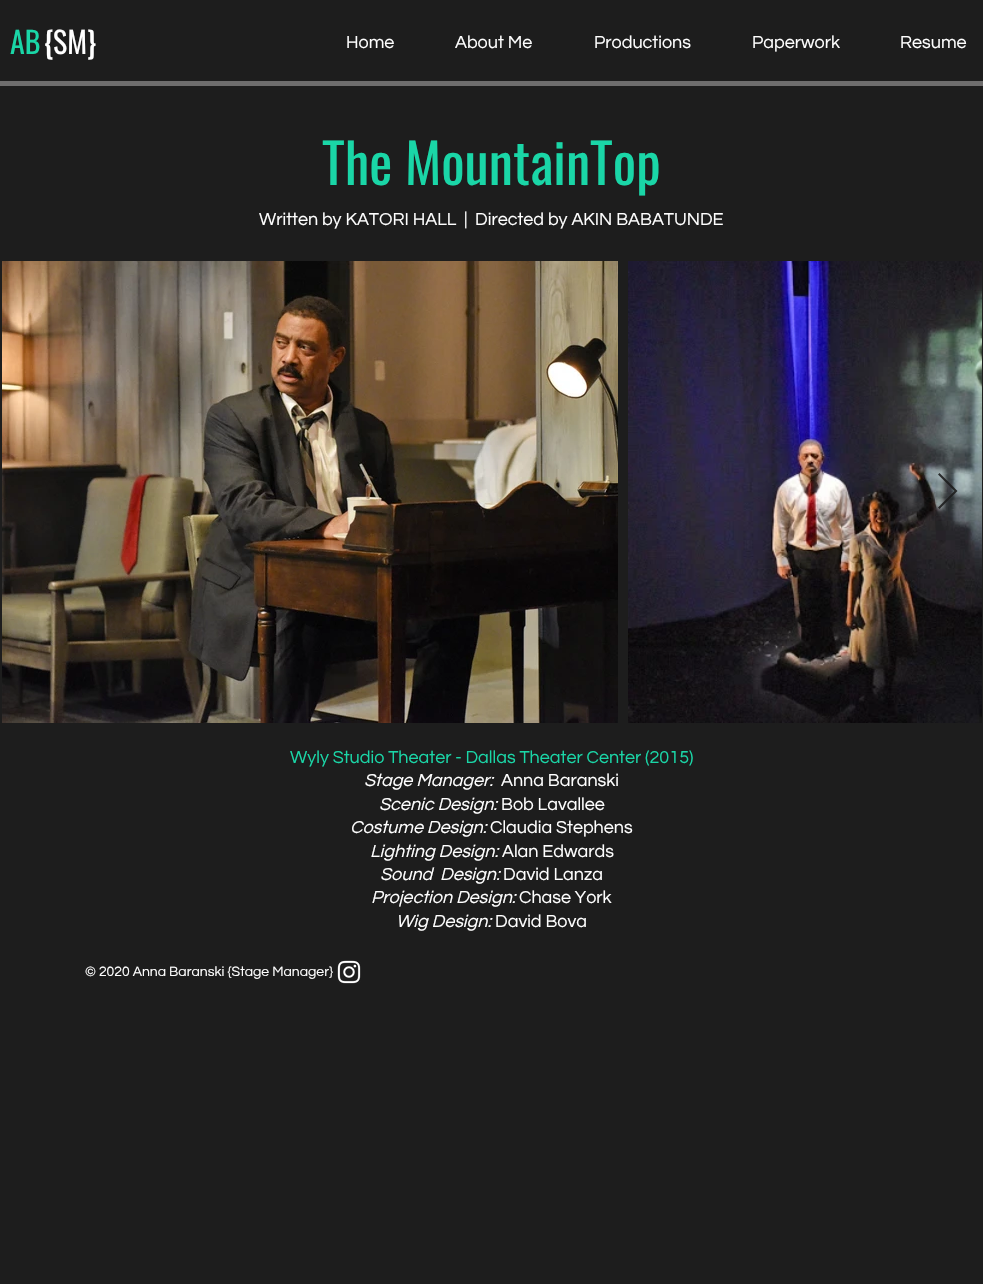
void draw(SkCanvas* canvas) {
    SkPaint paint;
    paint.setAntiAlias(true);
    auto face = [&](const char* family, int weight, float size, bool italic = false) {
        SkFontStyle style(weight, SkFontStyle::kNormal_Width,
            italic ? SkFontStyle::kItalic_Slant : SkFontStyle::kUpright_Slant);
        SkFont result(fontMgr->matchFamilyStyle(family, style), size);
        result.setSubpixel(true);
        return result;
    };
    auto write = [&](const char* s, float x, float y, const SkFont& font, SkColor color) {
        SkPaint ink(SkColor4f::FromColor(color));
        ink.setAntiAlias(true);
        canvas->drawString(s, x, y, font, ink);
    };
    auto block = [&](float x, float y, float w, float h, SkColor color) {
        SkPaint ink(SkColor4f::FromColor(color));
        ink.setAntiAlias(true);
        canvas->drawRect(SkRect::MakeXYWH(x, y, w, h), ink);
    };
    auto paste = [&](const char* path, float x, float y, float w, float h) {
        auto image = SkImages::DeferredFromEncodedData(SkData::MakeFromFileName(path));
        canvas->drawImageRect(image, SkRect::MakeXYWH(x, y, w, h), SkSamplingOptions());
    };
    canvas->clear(SkColorSetRGB(29, 29, 29));
    auto kFont1 = face("Oswald", 400, 30);
    write("AB", 10, 54, kFont1, SkColorSetRGB(26, 214, 167));
    write("{SM}", 44, 54, kFont1, SK_ColorWHITE);
    auto kFont2 = face("Questrial", 400, 18);
    write("Home", 346, 48, kFont2, SK_ColorWHITE);
    write("About Me", 455, 48, kFont2, SK_ColorWHITE);
    write("Productions", 594, 48, kFont2, SK_ColorWHITE);
    write("Paperwork", 752, 48, kFont2, SK_ColorWHITE);
    write("Resume", 900, 48, kFont2, SK_ColorWHITE);
    block(0, 81, 983, 5, SkColorSetRGB(110, 109, 109));
    auto kFont3 = face("Oswald", 400, 55);
    write("The MountainTop", 322, 185, kFont3, SkColorSetRGB(26, 214, 167));
    write("Written by KATORI HALL  |  Directed by AKIN BABATUNDE", 259, 225, kFont2, SK_ColorWHITE);
    paste("pic1.png", 2, 261, 616, 462);
    paste("pic2.png", 628, 261, 354, 462);
    paint.setColor(SkColorSetARGB(230, 29, 29, 29));
    canvas->drawPath(SkPathBuilder().moveTo(938, 474.5f).lineTo(939.5f, 473).lineTo(957.5f, 491).lineTo(939.5f, 509).lineTo(938, 507.5f).lineTo(954.5f, 491).close().detach(), paint);
    write("Wyly Studio Theater - Dallas Theater Center (2015)", 290, 763, kFont2, SkColorSetRGB(26, 214, 167));
    auto kFont4 = face("Questrial", 400, 18, true);
    write("Stage Manager:", 364, 786, kFont4, SK_ColorWHITE);
    write("Anna Baranski", 501, 786, kFont2, SK_ColorWHITE);
    write("Scenic Design:", 379, 810, kFont4, SK_ColorWHITE);
    write("Bob Lavallee", 501, 810, kFont2, SK_ColorWHITE);
    write("Costume Design:", 350, 833, kFont4, SK_ColorWHITE);
    write("Claudia Stephens", 490, 833, kFont2, SK_ColorWHITE);
    write("Lighting Design:", 370, 857, kFont4, SK_ColorWHITE);
    write("Alan Edwards", 502, 857, kFont2, SK_ColorWHITE);
    write("Sound  Design:", 380, 880, kFont4, SK_ColorWHITE);
    write("David Lanza", 503, 880, kFont2, SK_ColorWHITE);
    write("Projection Design:", 371, 903, kFont4, SK_ColorWHITE);
    write("Chase York", 519, 903, kFont2, SK_ColorWHITE);
    write("Wig Design:", 396, 927, kFont4, SK_ColorWHITE);
    write("David Bova", 495, 927, kFont2, SK_ColorWHITE);
    auto kFont5 = face("Questrial", 400, 14);
    write("© 2020 Anna Baranski {Stage Manager}", 85, 976, kFont5, SK_ColorWHITE);
    paste("pic3.png", 337, 960, 24, 24);
}
